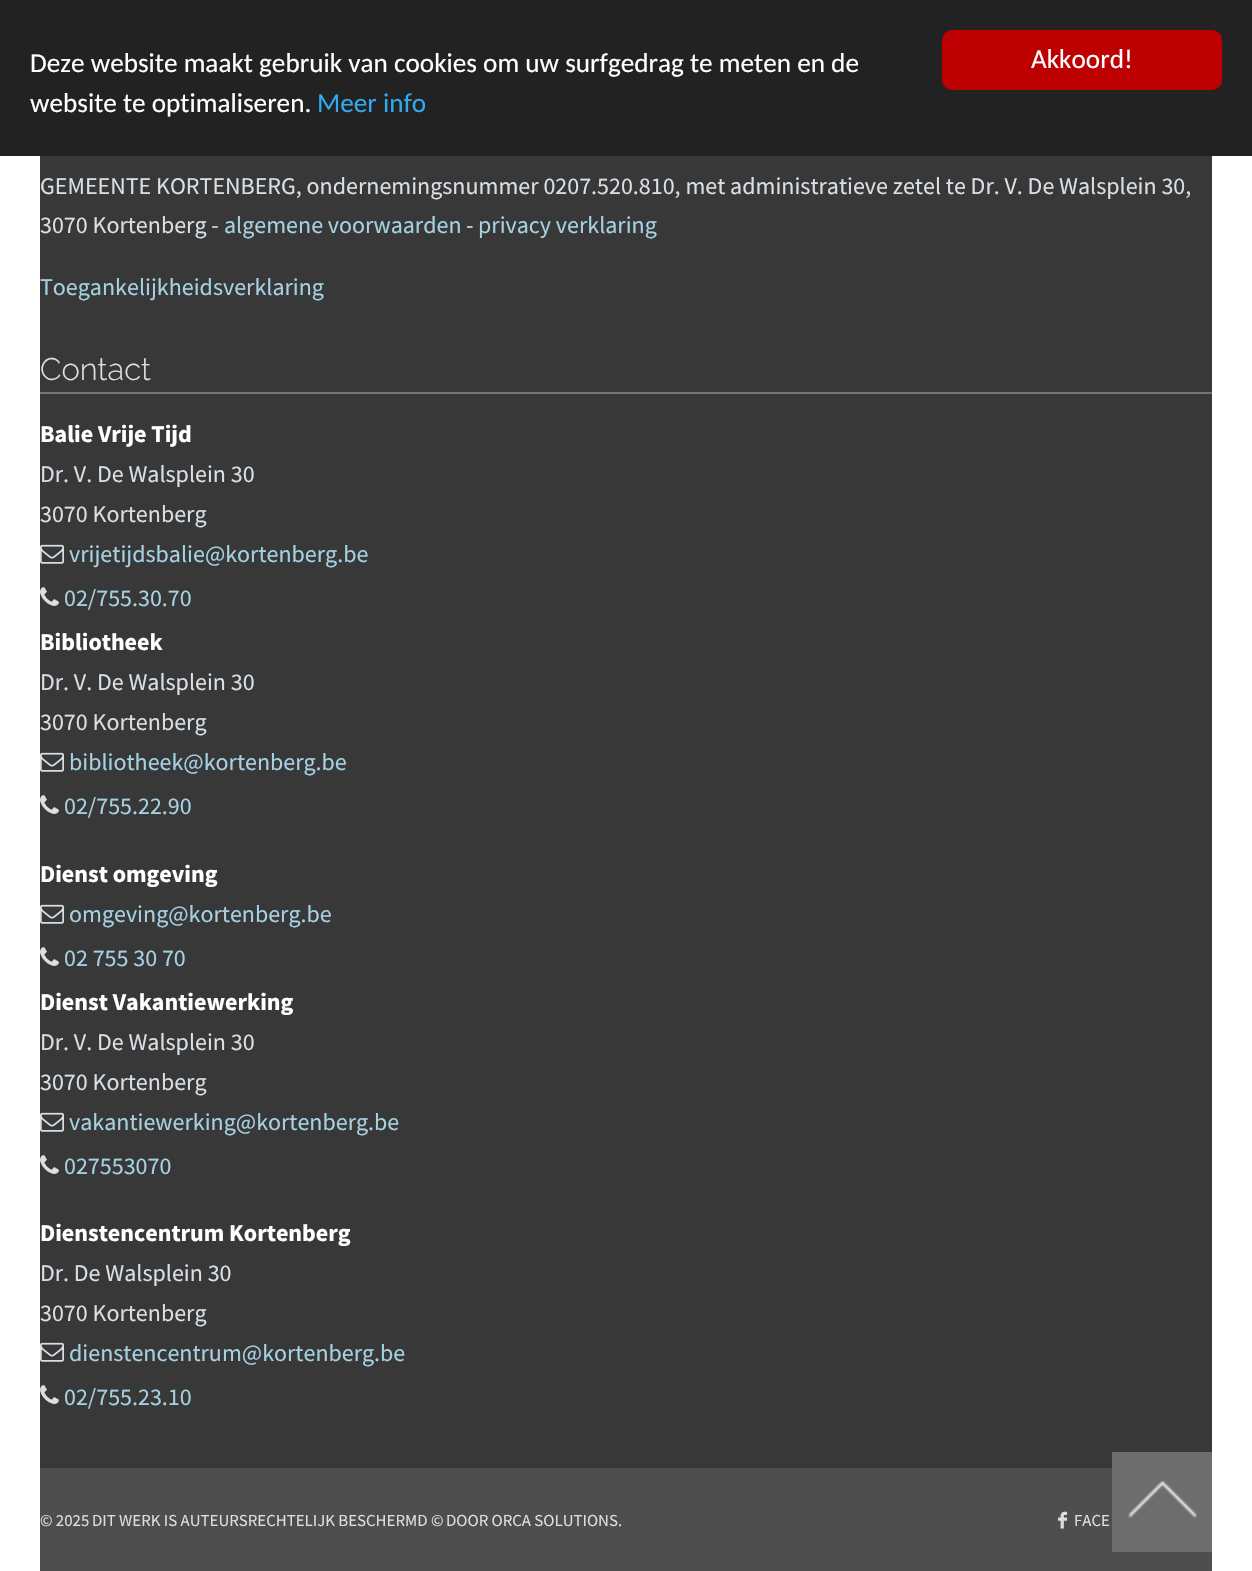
void draw(SkCanvas* canvas) {
    SkPaint paint;
    paint.setAntiAlias(true);
    auto face = [&](const char* family, int weight, float size, bool italic = false) {
        SkFontStyle style(weight, SkFontStyle::kNormal_Width,
            italic ? SkFontStyle::kItalic_Slant : SkFontStyle::kUpright_Slant);
        SkFont result(fontMgr->matchFamilyStyle(family, style), size);
        result.setSubpixel(true);
        return result;
    };
    auto write = [&](const char* s, float x, float y, const SkFont& font, SkColor color) {
        SkPaint ink(SkColor4f::FromColor(color));
        ink.setAntiAlias(true);
        canvas->drawString(s, x, y, font, ink);
    };
    auto block = [&](float x, float y, float w, float h, SkColor color) {
        SkPaint ink(SkColor4f::FromColor(color));
        ink.setAntiAlias(true);
        canvas->drawRect(SkRect::MakeXYWH(x, y, w, h), ink);
    };
    auto card = [&](float x, float y, float w, float h, float radius, SkColor color) {
        SkPaint ink(SkColor4f::FromColor(color));
        ink.setAntiAlias(true);
        canvas->drawRoundRect(SkRect::MakeXYWH(x, y, w, h), radius, radius, ink);
    };
    auto paste = [&](const char* path, float x, float y, float w, float h) {
        auto image = SkImages::DeferredFromEncodedData(SkData::MakeFromFileName(path));
        canvas->drawImageRect(image, SkRect::MakeXYWH(x, y, w, h), SkSamplingOptions());
    };
    canvas->clear(SK_ColorWHITE);
    block(0, 0, 1252, 156, SkColorSetRGB(34, 34, 34));
    auto kFont1 = face("Carlito", 400, 27.2f);
    write("Deze website maakt gebruik van cookies om uw surfgedrag te meten en de", 30, 72, kFont1, SK_ColorWHITE);
    write("website te optimaliseren.", 30, 112, kFont1, SK_ColorWHITE);
    write("Meer info", 317, 112, kFont1, SkColorSetRGB(49, 168, 240));
    card(942, 30, 280, 60, 10, SkColorSetRGB(189, 0, 2));
    write("Akkoord!", 1031, 68, kFont1, SK_ColorWHITE);
    block(40, 156, 1172, 1312, SkColorSetRGB(56, 56, 56));
    auto kFont2 = face("Source Sans Pro", 400, 24);
    write("GEMEENTE KORTENBERG, ondernemingsnummer 0207.520.810, met administratieve zetel te Dr. V. De Walsplein 30,", 40, 194, kFont2, SkColorSetRGB(216, 223, 229));
    write("3070 Kortenberg -", 40, 233, kFont2, SkColorSetRGB(216, 223, 229));
    write("algemene voorwaarden", 224, 233, kFont2, SkColorSetRGB(165, 209, 226));
    write("-", 466, 233, kFont2, SkColorSetRGB(216, 223, 229));
    write("privacy verklaring", 478, 233, kFont2, SkColorSetRGB(165, 209, 226));
    write("Toegankelijkheidsverklaring", 40, 295, kFont2, SkColorSetRGB(165, 209, 226));
    block(40, 392, 1172, 2, SkColorSetRGB(109, 118, 126));
    auto kFont3 = face("Raleway", 300, 31);
    write("Contact", 40, 380, kFont3, SkColorSetRGB(216, 223, 229));
    auto kFont4 = face("Source Sans Pro", 700, 24);
    write("Balie Vrije Tijd", 40, 442, kFont4, SK_ColorWHITE);
    write("Dr. V. De Walsplein 30", 40, 482, kFont2, SkColorSetRGB(216, 223, 229));
    write("3070 Kortenberg", 40, 522, kFont2, SkColorSetRGB(216, 223, 229));
    paste("pic1.png", 40, 544, 24, 20);
    write("vrijetijdsbalie@kortenberg.be", 69, 562, kFont2, SkColorSetRGB(165, 209, 226));
    paste("pic2.png", 40, 587, 19, 19);
    write("02/755.30.70", 64, 606, kFont2, SkColorSetRGB(165, 209, 226));
    write("Bibliotheek", 40, 650, kFont4, SK_ColorWHITE);
    write("Dr. V. De Walsplein 30", 40, 690, kFont2, SkColorSetRGB(216, 223, 229));
    write("3070 Kortenberg", 40, 730, kFont2, SkColorSetRGB(216, 223, 229));
    paste("pic1.png", 40, 752, 24, 20);
    write("bibliotheek@kortenberg.be", 69, 770, kFont2, SkColorSetRGB(165, 209, 226));
    paste("pic2.png", 40, 795, 19, 19);
    write("02/755.22.90", 64, 814, kFont2, SkColorSetRGB(165, 209, 226));
    write("Dienst omgeving", 40, 882, kFont4, SK_ColorWHITE);
    paste("pic1.png", 40, 904, 24, 20);
    write("omgeving@kortenberg.be", 69, 922, kFont2, SkColorSetRGB(165, 209, 226));
    paste("pic2.png", 40, 947, 19, 19);
    write("02 755 30 70", 64, 966, kFont2, SkColorSetRGB(165, 209, 226));
    write("Dienst Vakantiewerking", 40, 1010, kFont4, SK_ColorWHITE);
    write("Dr. V. De Walsplein 30", 40, 1050, kFont2, SkColorSetRGB(216, 223, 229));
    write("3070 Kortenberg", 40, 1090, kFont2, SkColorSetRGB(216, 223, 229));
    paste("pic1.png", 40, 1112, 24, 20);
    write("vakantiewerking@kortenberg.be", 69, 1130, kFont2, SkColorSetRGB(165, 209, 226));
    paste("pic2.png", 40, 1155, 19, 19);
    write("027553070", 64, 1174, kFont2, SkColorSetRGB(165, 209, 226));
    write("Dienstencentrum Kortenberg", 40, 1241, kFont4, SK_ColorWHITE);
    write("Dr. De Walsplein 30", 40, 1281, kFont2, SkColorSetRGB(216, 223, 229));
    write("3070 Kortenberg", 40, 1321, kFont2, SkColorSetRGB(216, 223, 229));
    paste("pic1.png", 40, 1342, 24, 20);
    write("dienstencentrum@kortenberg.be", 69, 1361, kFont2, SkColorSetRGB(165, 209, 226));
    paste("pic2.png", 40, 1385, 19, 19);
    write("02/755.23.10", 64, 1405, kFont2, SkColorSetRGB(165, 209, 226));
    block(40, 1468, 1172, 103, SkColorSetRGB(78, 78, 78));
    auto kFont5 = face("Source Sans Pro", 400, 16.8f);
    write("© 2025", 40, 1526, kFont5, SkColorSetRGB(216, 223, 229));
    write("DIT WERK IS AUTEURSRECHTELIJK BESCHERMD ©", 92, 1526, kFont5, SkColorSetRGB(216, 223, 229));
    write("DOOR ORCA SOLUTIONS.", 446, 1526, kFont5, SkColorSetRGB(216, 223, 229));
    paste("pic3.png", 1058, 1511, 10, 18);
    write("FACE", 1074, 1526, kFont5, SkColorSetRGB(216, 223, 229));
    block(1112, 1452, 100, 100, SkColorSetRGB(109, 109, 109));
    paste("pic4.png", 1127, 1480, 70, 39);
}
